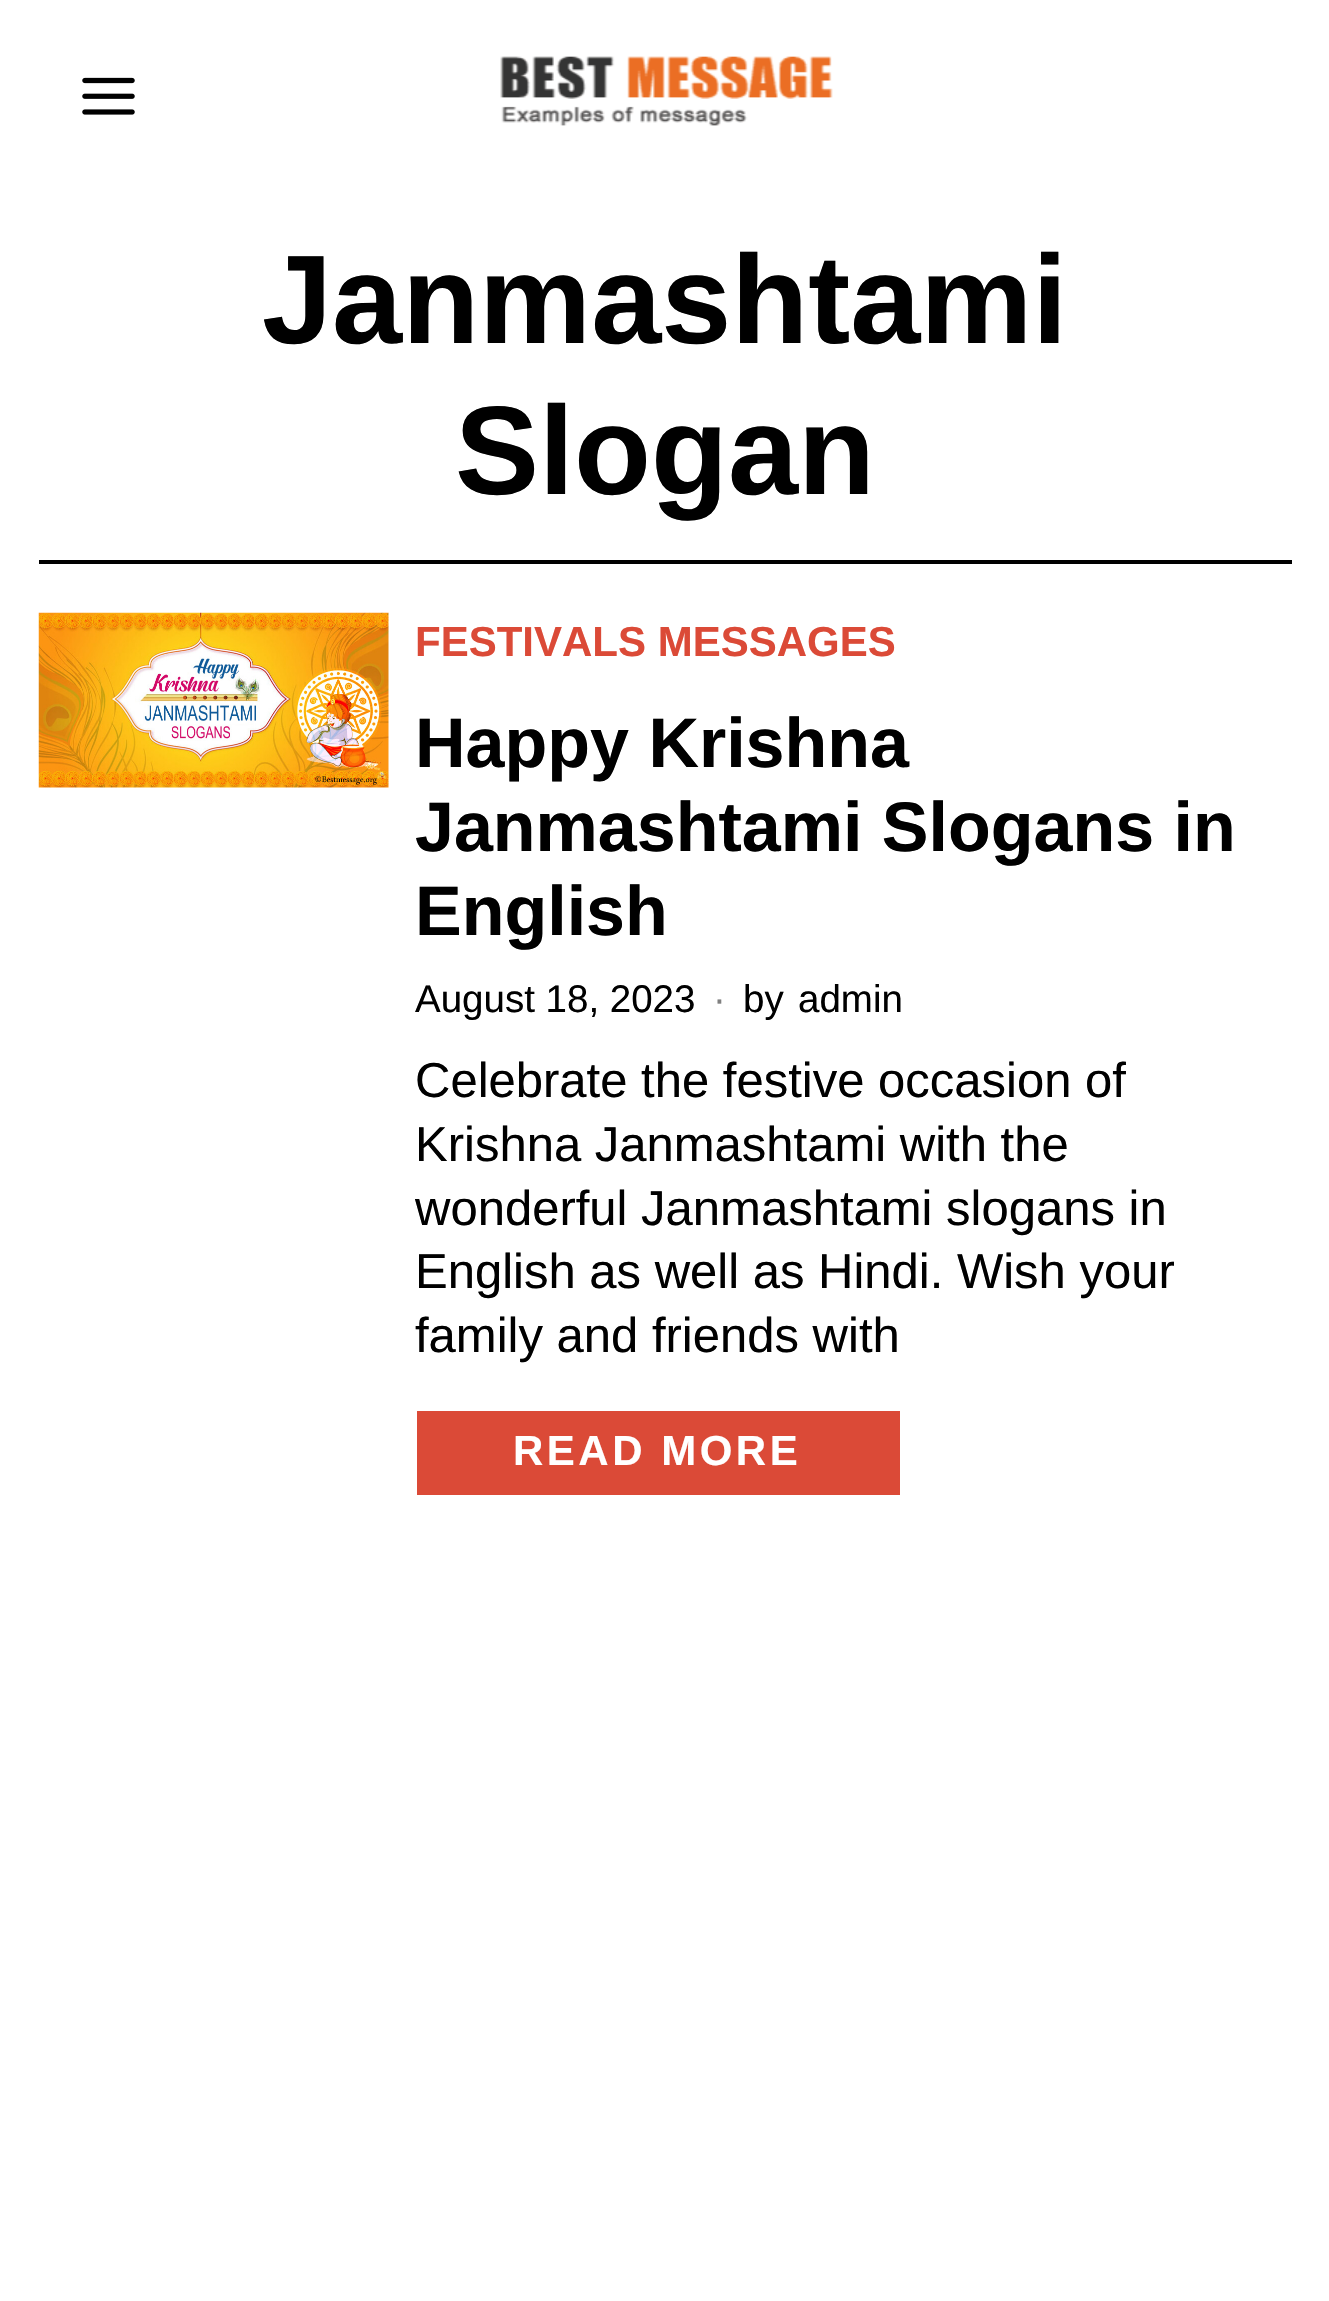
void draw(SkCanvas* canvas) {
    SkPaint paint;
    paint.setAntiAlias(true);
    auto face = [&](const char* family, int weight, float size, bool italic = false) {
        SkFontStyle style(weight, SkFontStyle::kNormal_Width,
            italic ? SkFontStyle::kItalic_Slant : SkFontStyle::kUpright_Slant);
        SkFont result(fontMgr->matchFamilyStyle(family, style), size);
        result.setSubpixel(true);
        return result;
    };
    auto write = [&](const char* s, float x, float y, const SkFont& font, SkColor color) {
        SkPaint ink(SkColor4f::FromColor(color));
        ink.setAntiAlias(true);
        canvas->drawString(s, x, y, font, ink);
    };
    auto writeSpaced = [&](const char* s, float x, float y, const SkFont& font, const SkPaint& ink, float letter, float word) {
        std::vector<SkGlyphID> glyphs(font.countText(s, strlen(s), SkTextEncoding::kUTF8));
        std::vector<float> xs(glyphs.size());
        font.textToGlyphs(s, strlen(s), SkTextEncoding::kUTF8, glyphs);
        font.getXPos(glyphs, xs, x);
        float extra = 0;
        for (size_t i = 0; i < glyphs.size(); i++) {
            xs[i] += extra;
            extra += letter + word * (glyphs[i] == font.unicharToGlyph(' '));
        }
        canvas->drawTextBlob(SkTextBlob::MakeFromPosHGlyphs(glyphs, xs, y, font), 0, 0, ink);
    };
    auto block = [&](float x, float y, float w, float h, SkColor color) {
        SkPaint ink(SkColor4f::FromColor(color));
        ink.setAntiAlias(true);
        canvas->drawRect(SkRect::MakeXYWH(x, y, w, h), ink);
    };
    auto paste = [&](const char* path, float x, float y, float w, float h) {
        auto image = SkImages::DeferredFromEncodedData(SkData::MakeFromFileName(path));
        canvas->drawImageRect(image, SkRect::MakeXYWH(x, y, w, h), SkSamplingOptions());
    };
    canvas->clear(SK_ColorWHITE);
    paste("pic1.png", 82, 77, 53, 38);
    paste("pic2.png", 500, 56, 333, 70);
    block(39, 560, 1253, 4, SK_ColorBLACK);
    auto kFont1 = face("Liberation Sans", 700, 126);
    write("Janmashtami", 262, 343, kFont1, SK_ColorBLACK);
    write("Slogan", 455, 494, kFont1, SK_ColorBLACK);
    paste("pic3.png", 38, 612, 351, 176);
    auto kFont2 = face("Liberation Sans", 700, 42);
    write("FESTIVALS MESSAGES", 415, 656, kFont2, SkColorSetRGB(219, 74, 55));
    auto kFont3 = face("Liberation Sans", 700, 70);
    write("Happy Krishna", 415, 767, kFont3, SK_ColorBLACK);
    write("Janmashtami Slogans in", 415, 851, kFont3, SK_ColorBLACK);
    write("English", 415, 935, kFont3, SK_ColorBLACK);
    auto kFont4 = face("Liberation Sans", 400, 38.5f);
    write("August 18, 2023", 415, 1012, kFont4, SK_ColorBLACK);
    write("·", 713, 1012, kFont4, SkColorSetRGB(128, 128, 128));
    write("by", 743, 1012, kFont4, SK_ColorBLACK);
    write("admin", 798, 1012, kFont4, SK_ColorBLACK);
    auto kFont5 = face("Liberation Sans", 400, 49);
    write("Celebrate the festive occasion of", 415, 1097, kFont5, SK_ColorBLACK);
    write("Krishna Janmashtami with the", 415, 1161, kFont5, SK_ColorBLACK);
    write("wonderful Janmashtami slogans in", 415, 1225, kFont5, SK_ColorBLACK);
    write("English as well as Hindi. Wish your", 415, 1288, kFont5, SK_ColorBLACK);
    write("family and friends with", 415, 1352, kFont5, SK_ColorBLACK);
    block(417, 1411, 483, 84, SkColorSetRGB(219, 74, 55));
    paint.setColor(SK_ColorWHITE);
    writeSpaced("READ MORE", 513, 1465, kFont2, paint, 3.5f, 0);
}
